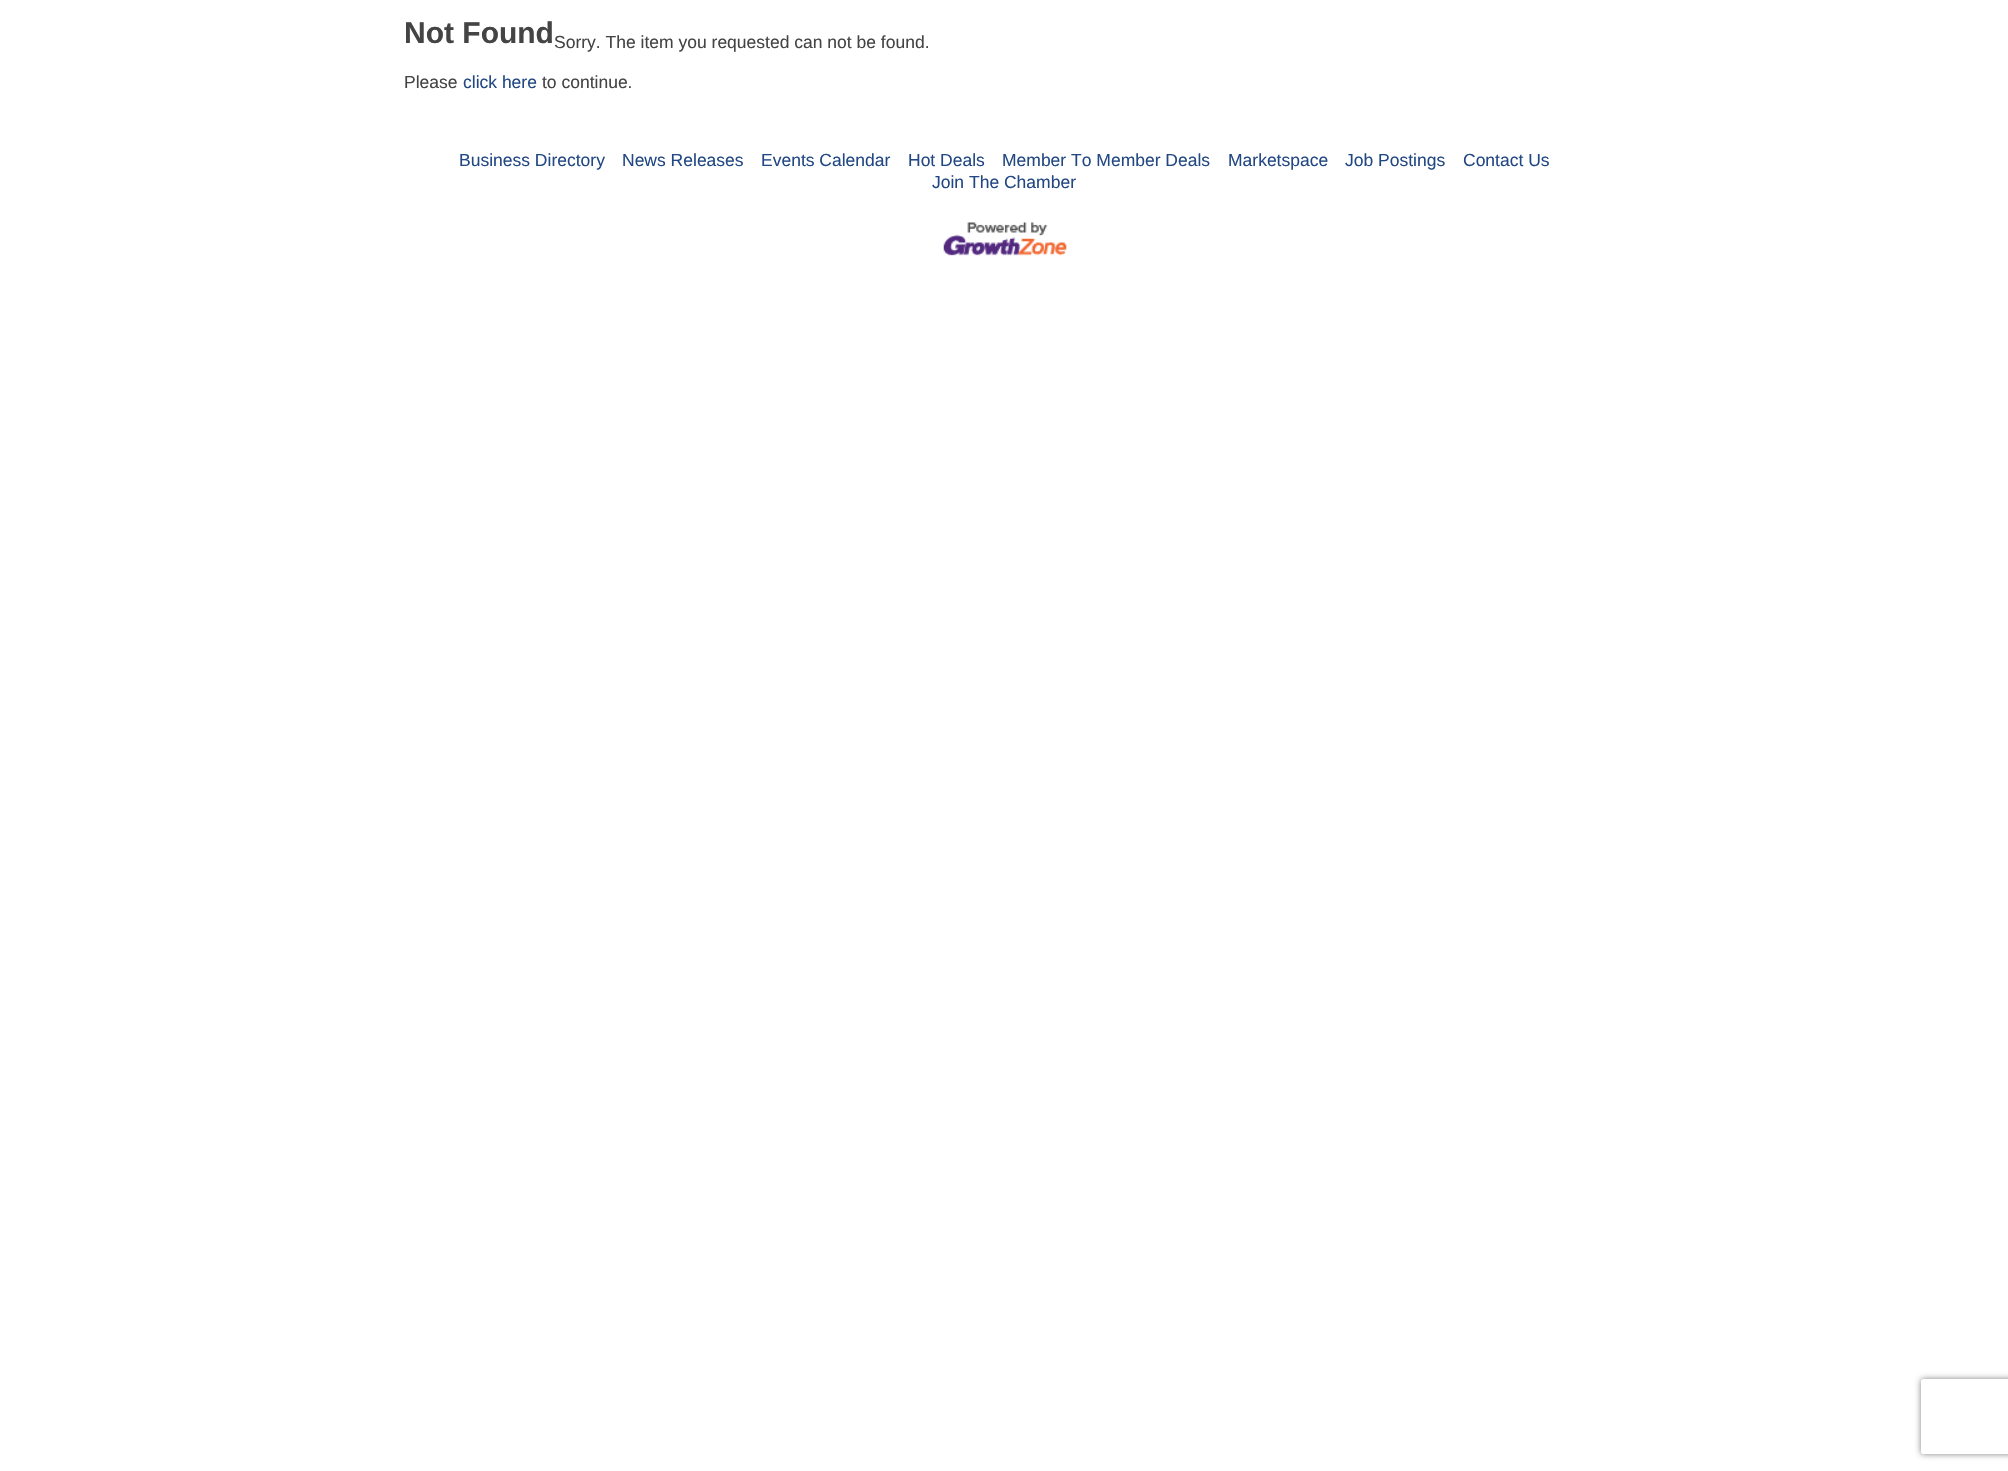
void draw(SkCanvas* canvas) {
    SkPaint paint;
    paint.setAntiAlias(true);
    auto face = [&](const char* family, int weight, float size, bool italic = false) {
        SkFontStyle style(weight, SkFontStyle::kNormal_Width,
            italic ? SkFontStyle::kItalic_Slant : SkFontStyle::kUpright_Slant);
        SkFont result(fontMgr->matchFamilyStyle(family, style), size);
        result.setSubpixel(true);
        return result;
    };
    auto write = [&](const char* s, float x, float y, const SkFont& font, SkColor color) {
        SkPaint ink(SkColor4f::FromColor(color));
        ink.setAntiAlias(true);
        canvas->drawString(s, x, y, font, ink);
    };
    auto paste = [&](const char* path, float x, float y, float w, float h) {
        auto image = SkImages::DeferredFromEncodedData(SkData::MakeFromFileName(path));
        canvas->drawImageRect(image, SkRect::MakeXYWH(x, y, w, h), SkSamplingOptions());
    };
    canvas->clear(SK_ColorWHITE);
    auto kFont1 = face("Liberation Sans", 700, 30);
    write("Not Found", 404, 43, kFont1, SkColorSetRGB(68, 68, 68));
    auto kFont2 = face("Liberation Sans", 400, 17.5f);
    write("Sorry. The item you requested can not be found.", 554, 48, kFont2, SkColorSetRGB(68, 68, 68));
    write("Please", 404, 88, kFont2, SkColorSetRGB(68, 68, 68));
    write("click here", 463, 88, kFont2, SkColorSetRGB(34, 72, 132));
    write("to continue.", 542, 88, kFont2, SkColorSetRGB(68, 68, 68));
    write("Business Directory", 459, 166, kFont2, SkColorSetRGB(34, 72, 132));
    write("News Releases", 622, 166, kFont2, SkColorSetRGB(34, 72, 132));
    write("Events Calendar", 761, 166, kFont2, SkColorSetRGB(34, 72, 132));
    write("Hot Deals", 908, 166, kFont2, SkColorSetRGB(34, 72, 132));
    write("Member To Member Deals", 1002, 166, kFont2, SkColorSetRGB(34, 72, 132));
    write("Marketspace", 1228, 166, kFont2, SkColorSetRGB(34, 72, 132));
    write("Job Postings", 1345, 166, kFont2, SkColorSetRGB(34, 72, 132));
    write("Contact Us", 1463, 166, kFont2, SkColorSetRGB(34, 72, 132));
    write("Join The Chamber", 932, 188, kFont2, SkColorSetRGB(34, 72, 132));
    paste("pic1.png", 943, 222, 124, 34);
    canvas->save();
    canvas->clipPath(SkPathBuilder(SkPathFillType::kEvenOdd).moveTo(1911, 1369).lineTo(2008, 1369).lineTo(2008, 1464).lineTo(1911, 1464).close().moveTo(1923.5f, 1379).lineTo(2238.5f, 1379).cubicTo(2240, 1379, 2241, 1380, 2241, 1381.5f).lineTo(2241, 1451.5f).cubicTo(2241, 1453, 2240, 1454, 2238.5f, 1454).lineTo(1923.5f, 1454).cubicTo(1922, 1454, 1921, 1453, 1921, 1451.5f).lineTo(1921, 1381.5f).cubicTo(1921, 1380, 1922, 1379, 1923.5f, 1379).close().detach(), true);
    paint.setColor(SkColorSetRGB(128, 128, 128));
    paint.setMaskFilter(SkMaskFilter::MakeBlur(kNormal_SkBlurStyle, 3));
    canvas->drawRoundRect(SkRect::MakeXYWH(1921, 1379, 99, 75), 2.5f, 2.5f, paint);
    paint.setMaskFilter(nullptr);
    canvas->restore();
}
